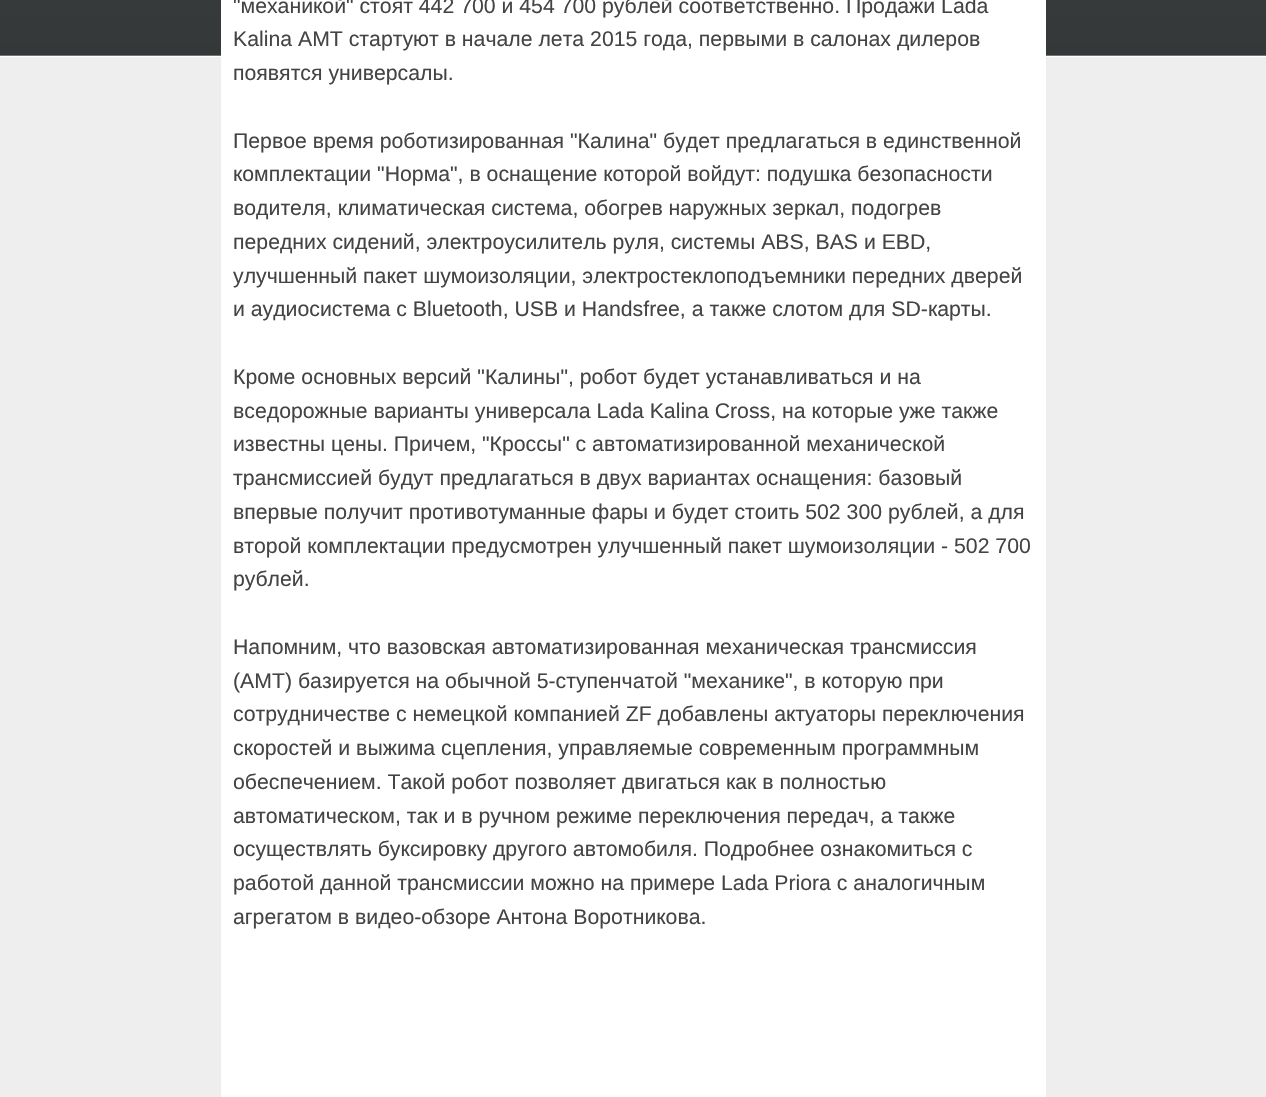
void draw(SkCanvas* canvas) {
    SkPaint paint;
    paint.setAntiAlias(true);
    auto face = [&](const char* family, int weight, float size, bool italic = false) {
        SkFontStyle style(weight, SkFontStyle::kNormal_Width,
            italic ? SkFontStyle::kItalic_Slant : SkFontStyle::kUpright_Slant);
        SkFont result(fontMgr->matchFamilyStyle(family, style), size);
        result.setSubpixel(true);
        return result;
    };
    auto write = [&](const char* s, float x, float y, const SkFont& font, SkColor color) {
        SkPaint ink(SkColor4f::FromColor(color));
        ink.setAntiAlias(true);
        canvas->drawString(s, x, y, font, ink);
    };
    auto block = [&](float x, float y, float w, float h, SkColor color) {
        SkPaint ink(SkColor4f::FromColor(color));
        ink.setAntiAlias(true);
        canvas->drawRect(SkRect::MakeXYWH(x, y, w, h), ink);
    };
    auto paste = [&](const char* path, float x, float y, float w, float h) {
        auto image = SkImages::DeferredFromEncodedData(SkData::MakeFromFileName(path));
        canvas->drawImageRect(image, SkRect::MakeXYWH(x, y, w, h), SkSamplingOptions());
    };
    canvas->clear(SkColorSetRGB(238, 238, 238));
    paste("pic1.png", 0, 0, 1266, 57);
    block(221, 0, 825, 1097, SK_ColorWHITE);
    auto kFont1 = face("Liberation Sans", 400, 21.25f);
    write("\"механикой\" стоят 442 700 и 454 700 рублей соответственно. Продажи Lada", 233, 13, kFont1, SkColorSetRGB(68, 68, 68));
    write("Kalina AMT стартуют в начале лета 2015 года, первыми в салонах дилеров", 233, 46, kFont1, SkColorSetRGB(68, 68, 68));
    write("появятся универсалы.", 233, 80, kFont1, SkColorSetRGB(68, 68, 68));
    write("Первое время роботизированная \"Калина\" будет предлагаться в единственной", 233, 148, kFont1, SkColorSetRGB(68, 68, 68));
    write("комплектации \"Норма\", в оснащение которой войдут: подушка безопасности", 233, 181, kFont1, SkColorSetRGB(68, 68, 68));
    write("водителя, климатическая система, обогрев наружных зеркал, подогрев", 233, 215, kFont1, SkColorSetRGB(68, 68, 68));
    write("передних сидений, электроусилитель руля, системы ABS, BAS и EBD,", 233, 249, kFont1, SkColorSetRGB(68, 68, 68));
    write("улучшенный пакет шумоизоляции, электростеклоподъемники передних дверей", 233, 283, kFont1, SkColorSetRGB(68, 68, 68));
    write("и аудиосистема с Bluetooth, USB и Handsfree, а также слотом для SD-карты.", 233, 316, kFont1, SkColorSetRGB(68, 68, 68));
    write("Кроме основных версий \"Калины\", робот будет устанавливаться и на", 233, 384, kFont1, SkColorSetRGB(68, 68, 68));
    write("вседорожные варианты универсала Lada Kalina Cross, на которые уже также", 233, 418, kFont1, SkColorSetRGB(68, 68, 68));
    write("известны цены. Причем, \"Кроссы\" с автоматизированной механической", 233, 451, kFont1, SkColorSetRGB(68, 68, 68));
    write("трансмиссией будут предлагаться в двух вариантах оснащения: базовый", 233, 485, kFont1, SkColorSetRGB(68, 68, 68));
    write("впервые получит противотуманные фары и будет стоить 502 300 рублей, а для", 233, 519, kFont1, SkColorSetRGB(68, 68, 68));
    write("второй комплектации предусмотрен улучшенный пакет шумоизоляции - 502 700", 233, 553, kFont1, SkColorSetRGB(68, 68, 68));
    write("рублей.", 233, 586, kFont1, SkColorSetRGB(68, 68, 68));
    write("Напомним, что вазовская автоматизированная механическая трансмиссия", 233, 654, kFont1, SkColorSetRGB(68, 68, 68));
    write("(AMT) базируется на обычной 5-ступенчатой \"механике\", в которую при", 233, 688, kFont1, SkColorSetRGB(68, 68, 68));
    write("сотрудничестве с немецкой компанией ZF добавлены актуаторы переключения", 233, 721, kFont1, SkColorSetRGB(68, 68, 68));
    write("скоростей и выжима сцепления, управляемые современным программным", 233, 755, kFont1, SkColorSetRGB(68, 68, 68));
    write("обеспечением. Такой робот позволяет двигаться как в полностью", 233, 789, kFont1, SkColorSetRGB(68, 68, 68));
    write("автоматическом, так и в ручном режиме переключения передач, а также", 233, 823, kFont1, SkColorSetRGB(68, 68, 68));
    write("осуществлять буксировку другого автомобиля. Подробнее ознакомиться с", 233, 856, kFont1, SkColorSetRGB(68, 68, 68));
    write("работой данной трансмиссии можно на примере Lada Priora с аналогичным", 233, 890, kFont1, SkColorSetRGB(68, 68, 68));
    write("агрегатом в видео-обзоре Антона Воротникова.", 233, 924, kFont1, SkColorSetRGB(68, 68, 68));
}
